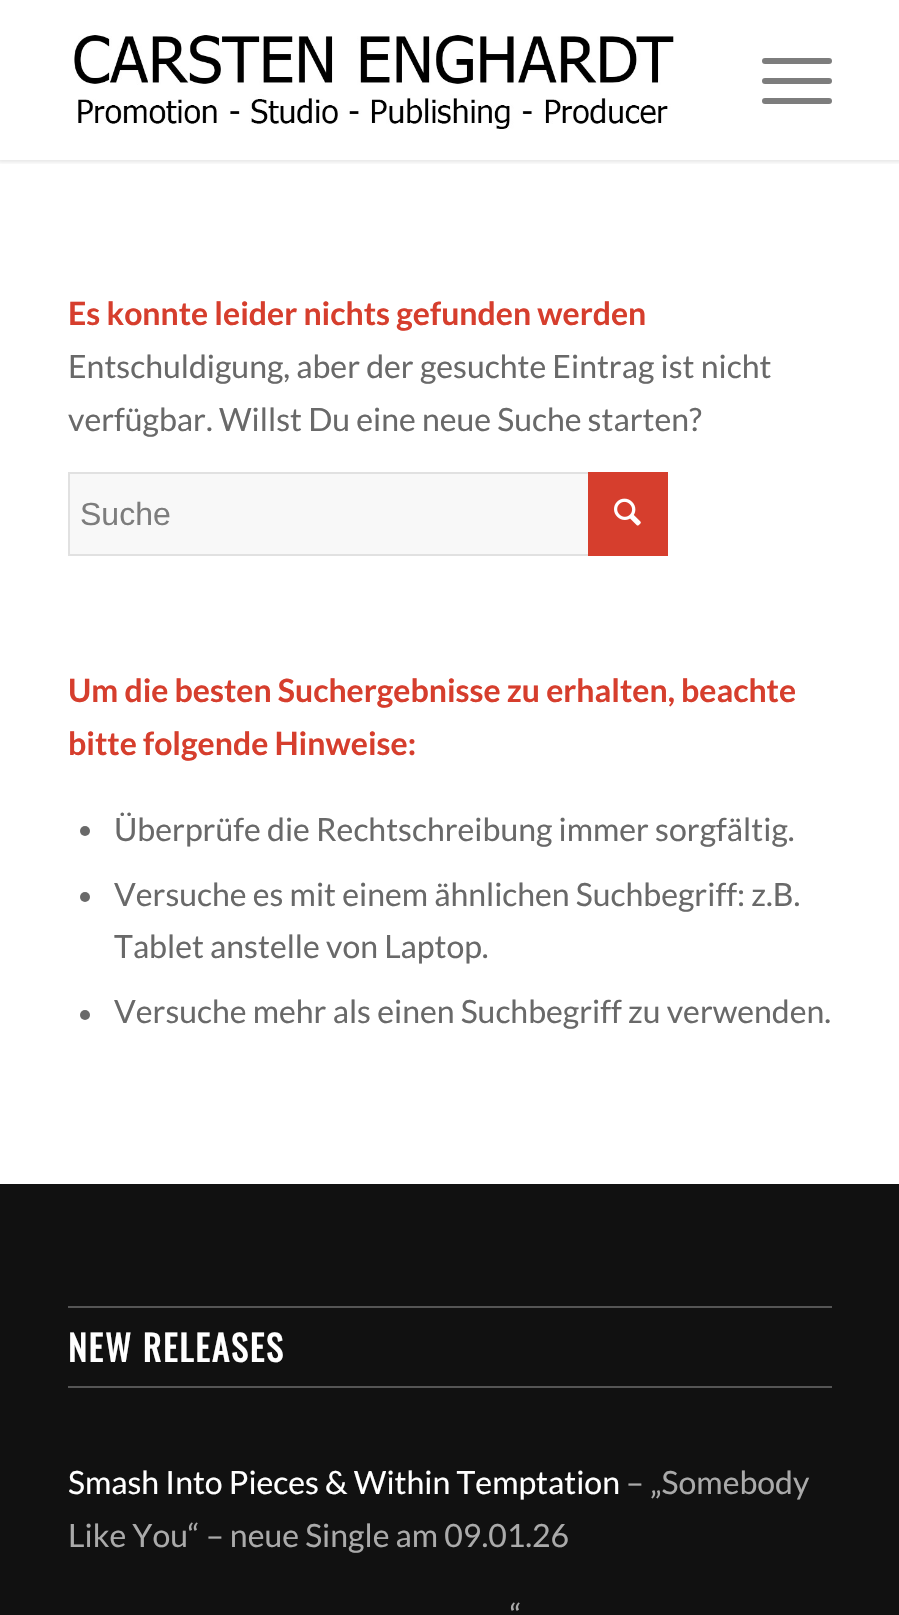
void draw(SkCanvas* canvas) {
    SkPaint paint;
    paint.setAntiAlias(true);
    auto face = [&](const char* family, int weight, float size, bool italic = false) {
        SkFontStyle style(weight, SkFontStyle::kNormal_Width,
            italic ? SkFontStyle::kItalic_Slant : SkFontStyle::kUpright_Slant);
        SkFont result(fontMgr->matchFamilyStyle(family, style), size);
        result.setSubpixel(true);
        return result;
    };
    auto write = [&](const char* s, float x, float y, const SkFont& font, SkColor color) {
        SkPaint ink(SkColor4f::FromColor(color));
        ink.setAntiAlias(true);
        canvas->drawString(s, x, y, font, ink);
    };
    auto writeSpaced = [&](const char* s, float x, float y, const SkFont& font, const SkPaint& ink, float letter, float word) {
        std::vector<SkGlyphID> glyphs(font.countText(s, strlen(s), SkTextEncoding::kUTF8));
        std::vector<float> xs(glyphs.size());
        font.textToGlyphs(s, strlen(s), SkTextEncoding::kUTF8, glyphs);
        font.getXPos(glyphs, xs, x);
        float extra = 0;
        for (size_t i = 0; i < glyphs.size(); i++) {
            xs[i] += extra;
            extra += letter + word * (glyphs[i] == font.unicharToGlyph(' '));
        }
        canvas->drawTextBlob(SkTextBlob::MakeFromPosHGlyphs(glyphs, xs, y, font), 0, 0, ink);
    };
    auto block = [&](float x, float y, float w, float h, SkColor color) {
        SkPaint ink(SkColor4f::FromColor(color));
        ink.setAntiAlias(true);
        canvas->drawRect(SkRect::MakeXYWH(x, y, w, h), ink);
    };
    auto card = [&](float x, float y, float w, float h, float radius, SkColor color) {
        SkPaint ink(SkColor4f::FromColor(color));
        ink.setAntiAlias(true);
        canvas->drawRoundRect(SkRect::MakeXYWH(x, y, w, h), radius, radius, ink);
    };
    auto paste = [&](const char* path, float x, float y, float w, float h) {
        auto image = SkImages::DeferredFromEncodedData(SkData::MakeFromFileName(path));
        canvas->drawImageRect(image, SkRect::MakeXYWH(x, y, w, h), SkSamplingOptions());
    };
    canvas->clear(SK_ColorWHITE);
    canvas->save();
    canvas->clipRect(SkRect::MakeXYWH(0, 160, 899, 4));
    paint.setColor(SkColorSetARGB(26, 0, 0, 0));
    paint.setMaskFilter(SkMaskFilter::MakeBlur(kNormal_SkBlurStyle, 2));
    canvas->drawRect(SkRect::MakeXYWH(-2, -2, 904, 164), paint);
    paint.setMaskFilter(nullptr);
    canvas->restore();
    paste("pic1.png", 74, 35, 600, 94);
    card(762, 78, 70, 6, 3, SkColorSetRGB(125, 125, 125));
    card(762, 58, 70, 6, 3, SkColorSetRGB(125, 125, 125));
    card(762, 98, 70, 6, 3, SkColorSetRGB(125, 125, 125));
    auto kFont1 = face("Lato", 700, 32);
    write("Es konnte leider nichts gefunden werden", 68, 325, kFont1, SkColorSetRGB(214, 62, 45));
    auto kFont2 = face("Lato", 400, 32);
    write("Entschuldigung, aber der gesuchte Eintrag ist nicht", 68, 378, kFont2, SkColorSetRGB(105, 105, 105));
    write("verfügbar. Willst Du eine neue Suche starten?", 68, 431, kFont2, SkColorSetRGB(105, 105, 105));
    block(70, 474, 518, 80, SkColorSetRGB(248, 248, 248));
    paint.setStyle(SkPaint::kStroke_Style);
    paint.setStrokeWidth(2);
    paint.setColor(SkColorSetRGB(225, 225, 225));
    canvas->drawRect(SkRect::MakeXYWH(69, 473, 598, 82), paint);
    auto kFont3 = face("Liberation Sans", 400, 32);
    write("Suche", 80, 525, kFont3, SkColorSetRGB(125, 125, 125));
    block(588, 472, 80, 84, SkColorSetRGB(214, 62, 45));
    paste("pic2.png", 614, 498, 27, 28);
    write("Um die besten Suchergebnisse zu erhalten, beachte", 68, 702, kFont1, SkColorSetRGB(214, 62, 45));
    write("bitte folgende Hinweise:", 68, 755, kFont1, SkColorSetRGB(214, 62, 45));
    paint.setStyle(SkPaint::kFill_Style);
    paint.setColor(SkColorSetRGB(105, 105, 105));
    canvas->drawCircle(85, 831, 5, paint);
    write("Überprüfe die Rechtschreibung immer sorgfältig.", 114, 841, kFont2, SkColorSetRGB(105, 105, 105));
    canvas->drawCircle(85, 897, 5, paint);
    write("Versuche es mit einem ähnlichen Suchbegriff: z.B.", 114, 906, kFont2, SkColorSetRGB(105, 105, 105));
    write("Tablet anstelle von Laptop.", 114, 958, kFont2, SkColorSetRGB(105, 105, 105));
    canvas->drawCircle(85, 1015, 5, paint);
    write("Versuche mehr als einen Suchbegriff zu verwenden.", 114, 1023, kFont2, SkColorSetRGB(105, 105, 105));
    block(0, 1184, 899, 431, SkColorSetRGB(17, 17, 17));
    block(68, 1306, 764, 2, SkColorSetRGB(85, 85, 85));
    block(68, 1386, 764, 2, SkColorSetRGB(85, 85, 85));
    auto kFont4 = face("Oswald", 700, 35.25f);
    paint.setColor(SK_ColorWHITE);
    writeSpaced("NEW RELEASES", 68, 1362, kFont4, paint, 2, 0);
    write("Smash Into Pieces & Within Temptation", 68, 1494, kFont2, SK_ColorWHITE);
    write("– „Somebody", 626, 1494, kFont2, SkColorSetRGB(170, 170, 170));
    write("Like You“ – neue Single am 09.01.26", 68, 1547, kFont2, SkColorSetRGB(170, 170, 170));
    write("“", 510, 1627, kFont2, SkColorSetRGB(170, 170, 170));
}
